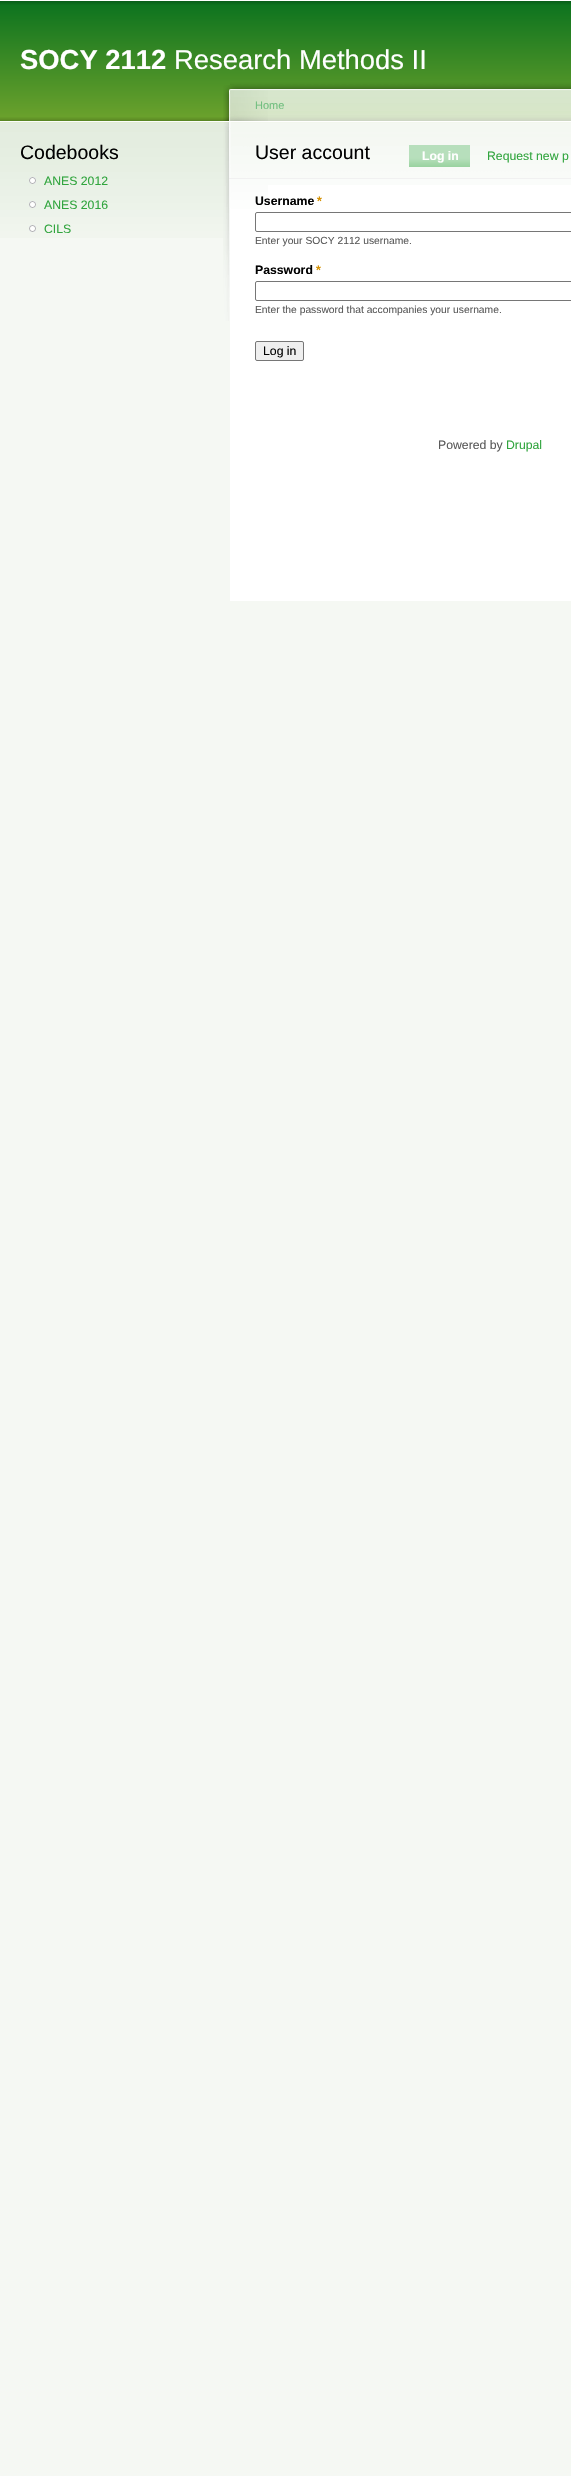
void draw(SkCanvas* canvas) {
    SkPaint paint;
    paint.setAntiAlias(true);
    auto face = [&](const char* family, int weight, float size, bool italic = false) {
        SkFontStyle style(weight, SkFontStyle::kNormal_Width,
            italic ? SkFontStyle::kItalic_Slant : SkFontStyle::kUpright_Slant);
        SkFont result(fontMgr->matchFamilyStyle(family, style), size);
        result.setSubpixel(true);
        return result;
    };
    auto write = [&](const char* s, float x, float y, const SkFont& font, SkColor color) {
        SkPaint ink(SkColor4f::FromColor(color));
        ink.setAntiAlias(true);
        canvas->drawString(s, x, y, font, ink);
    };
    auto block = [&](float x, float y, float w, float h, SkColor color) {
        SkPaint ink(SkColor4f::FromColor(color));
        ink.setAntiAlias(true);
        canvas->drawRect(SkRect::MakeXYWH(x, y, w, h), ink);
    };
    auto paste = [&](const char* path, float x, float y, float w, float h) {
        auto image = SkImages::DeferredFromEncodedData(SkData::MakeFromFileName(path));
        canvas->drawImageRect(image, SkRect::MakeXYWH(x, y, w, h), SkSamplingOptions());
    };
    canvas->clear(SkColorSetRGB(245, 248, 243));
    paste("pic1.png", 0, 0, 571, 238);
    auto kFont1 = face("Liberation Sans", 700, 27.4f);
    write("SOCY 2112", 20, 69, kFont1, SK_ColorWHITE);
    auto kFont2 = face("Liberation Sans", 400, 27.4f);
    write("Research Methods II", 174, 69, kFont2, SK_ColorWHITE);
    auto kFont3 = face("Liberation Sans", 400, 19.5f);
    write("Codebooks", 20, 159, kFont3, SkColorSetRGB(2, 2, 2));
    paste("pic2.png", 29, 177, 7, 7);
    auto kFont4 = face("Liberation Sans", 400, 12.25f);
    write("ANES 2012", 44, 185, kFont4, SkColorSetRGB(49, 165, 62));
    paste("pic3.png", 29, 201, 7, 7);
    write("ANES 2016", 44, 209, kFont4, SkColorSetRGB(49, 165, 62));
    paste("pic4.png", 29, 225, 7, 7);
    write("CILS", 44, 233, kFont4, SkColorSetRGB(49, 165, 62));
    block(230, 185, 341, 416, SK_ColorWHITE);
    paste("pic5.png", 230, 80, 341, 105);
    paste("pic6.png", 223, 85, 45, 236);
    auto kFont5 = face("Liberation Sans", 400, 11);
    write("Home", 255, 109, kFont5, SkColorSetRGB(114, 191, 128));
    block(229, 178, 342, 1, SkColorSetRGB(241, 241, 241));
    write("User account", 255, 159, kFont3, SkColorSetRGB(2, 2, 2));
    paste("pic7.png", 409, 145, 61, 22);
    auto kFont6 = face("Liberation Sans", 700, 12.25f);
    write("Log in", 422, 160, kFont6, SK_ColorWHITE);
    write("Request new p", 487, 160, kFont4, SkColorSetRGB(49, 165, 62));
    write("Username", 255, 205, kFont6, SkColorSetRGB(2, 2, 2));
    write("*", 317, 205, kFont6, SkColorSetRGB(212, 144, 0));
    paint.setStyle(SkPaint::kStroke_Style);
    paint.setStrokeWidth(1);
    paint.setColor(SkColorSetRGB(118, 118, 118));
    canvas->drawRoundRect(SkRect::MakeXYWH(255.5f, 212.5f, 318, 19), 1.5f, 1.5f, paint);
    auto kFont7 = face("Liberation Sans", 400, 10.3f);
    write("Enter your SOCY 2112 username.", 255, 244, kFont7, SkColorSetRGB(90, 90, 90));
    write("Password", 255, 274, kFont6, SkColorSetRGB(2, 2, 2));
    write("*", 316, 274, kFont6, SkColorSetRGB(212, 144, 0));
    canvas->drawRoundRect(SkRect::MakeXYWH(255.5f, 281.5f, 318, 19), 1.5f, 1.5f, paint);
    write("Enter the password that accompanies your username.", 255, 313, kFont7, SkColorSetRGB(90, 90, 90));
    paint.setStyle(SkPaint::kFill_Style);
    paint.setColor(SkColorSetRGB(239, 239, 239));
    canvas->drawRoundRect(SkRect::MakeXYWH(255.5f, 341.5f, 48, 19), 1.5f, 1.5f, paint);
    paint.setStyle(SkPaint::kStroke_Style);
    paint.setColor(SkColorSetRGB(118, 118, 118));
    canvas->drawRoundRect(SkRect::MakeXYWH(255.5f, 341.5f, 48, 19), 1.5f, 1.5f, paint);
    write("Log in", 263, 355, kFont4, SkColorSetRGB(2, 2, 2));
    write("Powered by", 438, 449, kFont4, SkColorSetRGB(90, 90, 90));
    write("Drupal", 506, 449, kFont4, SkColorSetRGB(49, 165, 62));
}
